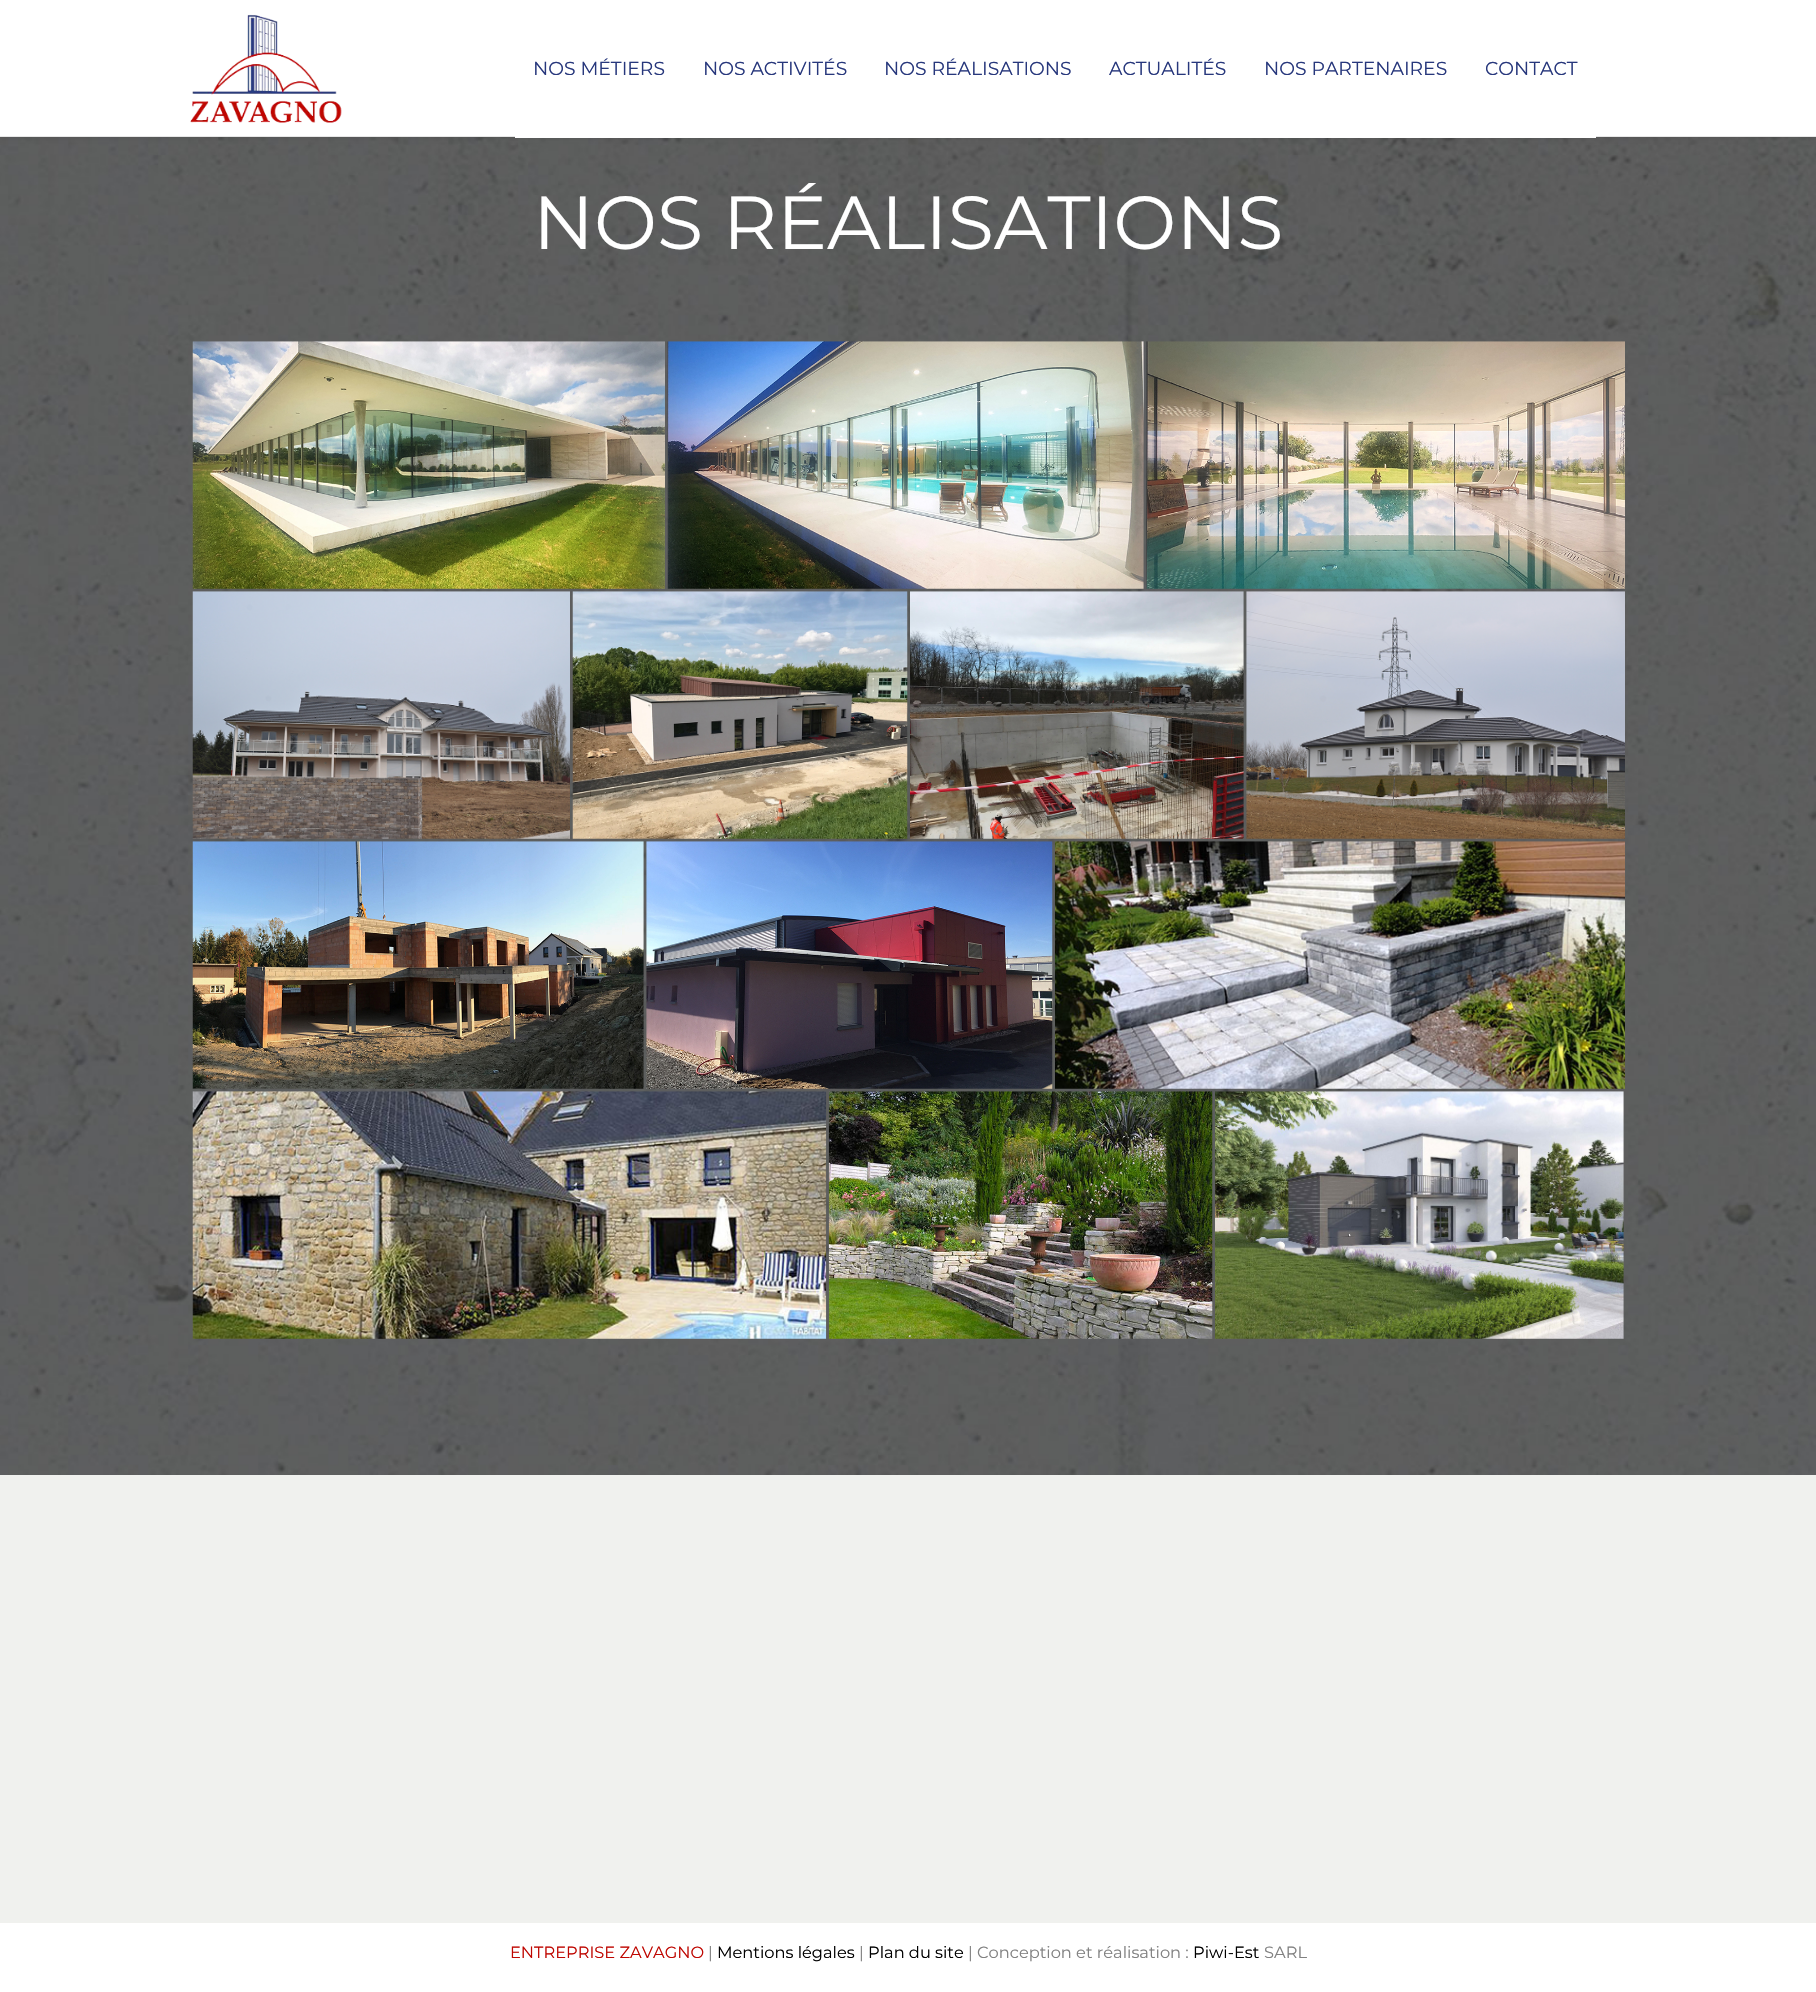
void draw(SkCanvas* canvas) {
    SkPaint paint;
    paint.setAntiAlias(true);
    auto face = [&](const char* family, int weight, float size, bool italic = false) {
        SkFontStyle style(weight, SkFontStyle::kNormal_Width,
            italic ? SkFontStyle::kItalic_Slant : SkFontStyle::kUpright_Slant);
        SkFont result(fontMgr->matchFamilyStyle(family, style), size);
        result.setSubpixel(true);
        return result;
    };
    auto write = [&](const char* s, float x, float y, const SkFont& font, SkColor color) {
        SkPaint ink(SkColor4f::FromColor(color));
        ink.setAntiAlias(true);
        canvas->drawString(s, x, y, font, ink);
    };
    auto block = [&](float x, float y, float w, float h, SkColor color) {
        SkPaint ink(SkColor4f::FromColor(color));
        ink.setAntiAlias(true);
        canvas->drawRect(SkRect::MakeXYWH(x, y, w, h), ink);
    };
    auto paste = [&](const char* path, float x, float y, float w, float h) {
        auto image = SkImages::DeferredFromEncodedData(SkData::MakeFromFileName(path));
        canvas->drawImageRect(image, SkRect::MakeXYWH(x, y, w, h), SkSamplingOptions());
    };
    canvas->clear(SkColorSetRGB(240, 241, 238));
    paste("pic2.png", 0, 137, 1816, 1338);
    paint.setColor(SkColorSetARGB(18, 0, 0, 0));
    paint.setMaskFilter(SkMaskFilter::MakeBlur(kNormal_SkBlurStyle, 3));
    canvas->drawRect(SkRect::MakeXYWH(0, 1, 1816, 138), paint);
    paint.setMaskFilter(nullptr);
    block(0, 0, 1816, 136, SK_ColorWHITE);
    block(0, 136, 1816, 1, SkColorSetRGB(231, 231, 231));
    paste("pic1.png", 190, 14, 152, 109);
    block(515, 136, 1081, 2, SK_ColorWHITE);
    auto kFont1 = face("Montserrat", 400, 18.75f);
    write("NOS MÉTIERS", 533, 75, kFont1, SkColorSetRGB(39, 55, 124));
    write("NOS ACTIVITÉS", 703, 75, kFont1, SkColorSetRGB(39, 55, 124));
    write("NOS RÉALISATIONS", 884, 75, kFont1, SkColorSetRGB(39, 55, 124));
    write("ACTUALITÉS", 1109, 75, kFont1, SkColorSetRGB(39, 55, 124));
    write("NOS PARTENAIRES", 1264, 75, kFont1, SkColorSetRGB(39, 55, 124));
    write("CONTACT", 1485, 75, kFont1, SkColorSetRGB(39, 55, 124));
    auto kFont2 = face("Montserrat", 400, 75);
    write("NOS RÉALISATIONS", 533, 249, kFont2, SK_ColorWHITE);
    paste("pic3.png", 192, 341, 473, 248);
    paste("pic4.png", 667, 341, 477, 248);
    paste("pic5.png", 1146, 341, 479, 248);
    paste("pic6.png", 192, 591, 378, 248);
    paste("pic7.png", 572, 591, 336, 248);
    paste("pic8.png", 910, 591, 334, 248);
    paste("pic9.png", 1246, 591, 379, 248);
    paste("pic10.png", 192, 841, 452, 248);
    paste("pic11.png", 646, 841, 407, 248);
    paste("pic12.png", 1055, 841, 570, 248);
    paste("pic13.png", 192, 1091, 635, 248);
    paste("pic14.png", 828, 1091, 385, 248);
    paste("pic15.png", 1215, 1091, 409, 248);
    block(0, 1923, 1816, 69, SK_ColorWHITE);
    auto kFont3 = face("Montserrat", 400, 16.25f);
    write("ENTREPRISE ZAVAGNO", 510, 1958, kFont3, SkColorSetRGB(191, 7, 1));
    write("|", 708, 1958, kFont3, SkColorSetRGB(129, 129, 129));
    write("Mentions légales", 717, 1958, kFont3, SK_ColorBLACK);
    write("|", 859, 1958, kFont3, SkColorSetRGB(129, 129, 129));
    write("Plan du site", 868, 1958, kFont3, SK_ColorBLACK);
    write("| Conception et réalisation :", 968, 1958, kFont3, SkColorSetRGB(129, 129, 129));
    write("Piwi-Est", 1193, 1958, kFont3, SK_ColorBLACK);
    write("SARL", 1264, 1958, kFont3, SkColorSetRGB(129, 129, 129));
}
